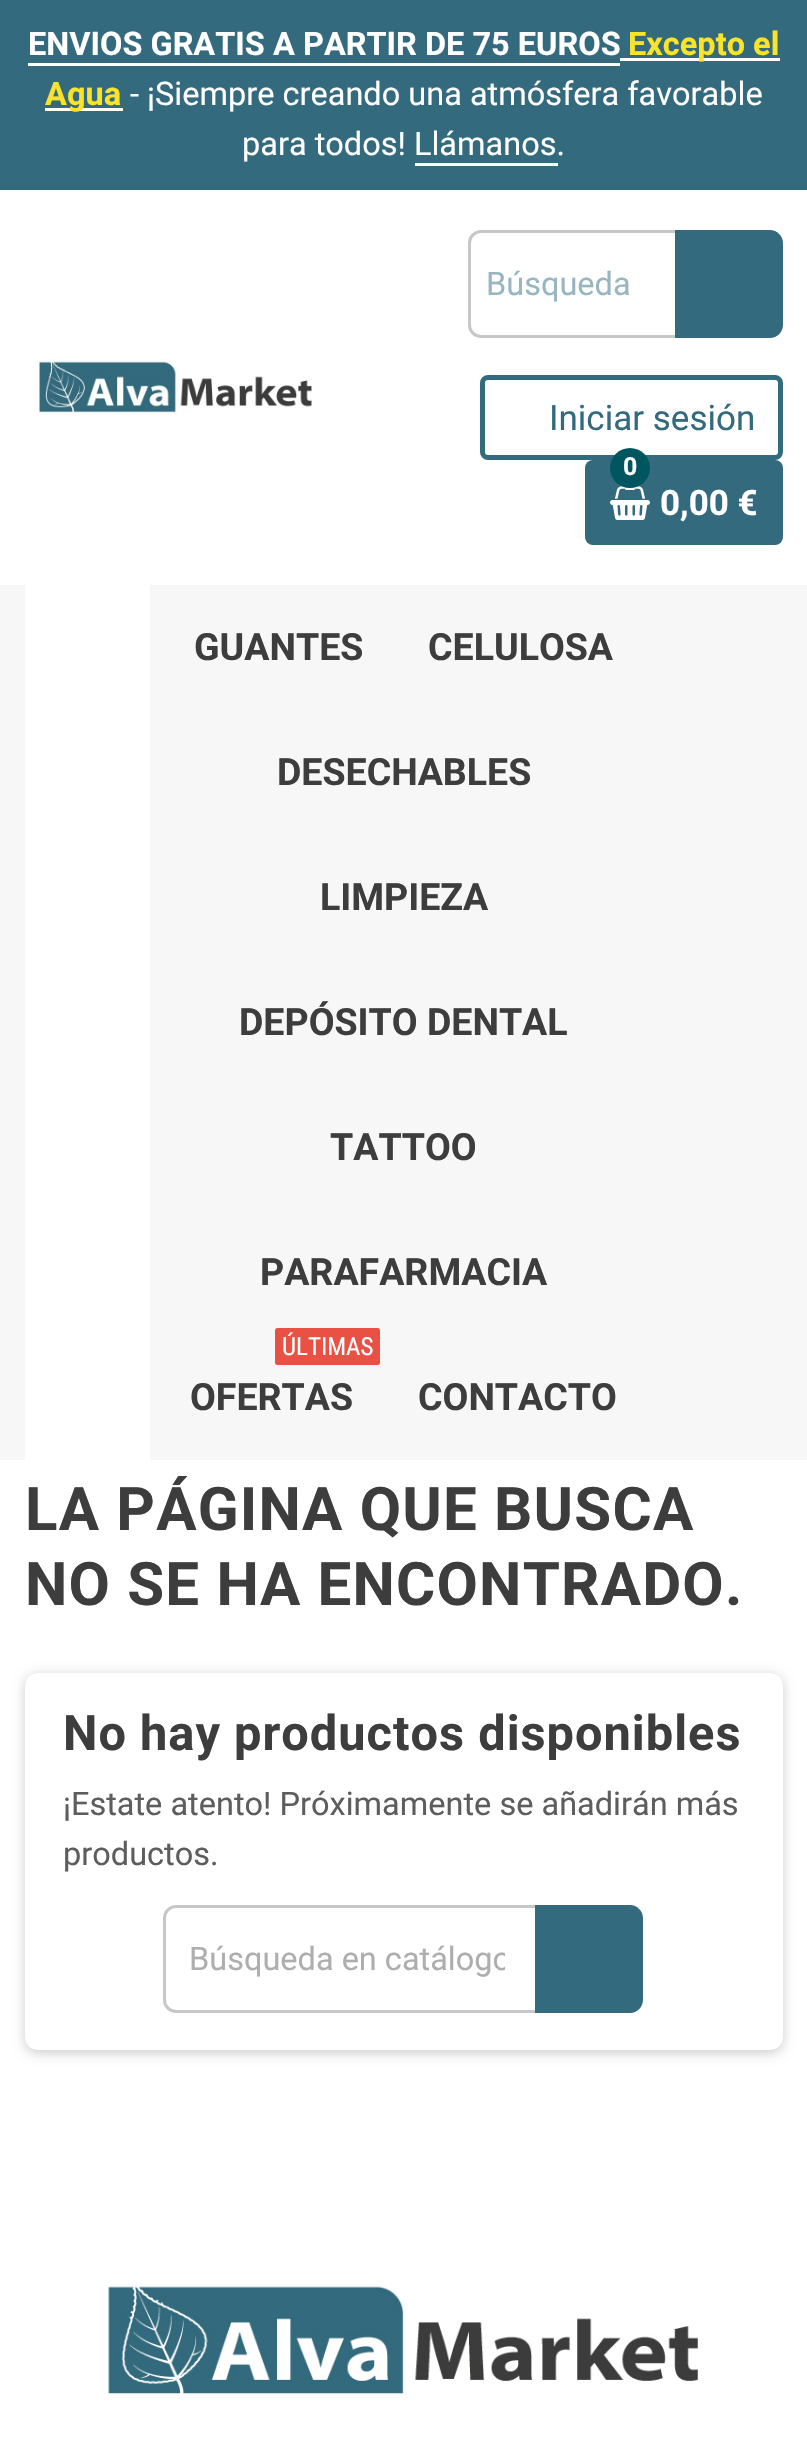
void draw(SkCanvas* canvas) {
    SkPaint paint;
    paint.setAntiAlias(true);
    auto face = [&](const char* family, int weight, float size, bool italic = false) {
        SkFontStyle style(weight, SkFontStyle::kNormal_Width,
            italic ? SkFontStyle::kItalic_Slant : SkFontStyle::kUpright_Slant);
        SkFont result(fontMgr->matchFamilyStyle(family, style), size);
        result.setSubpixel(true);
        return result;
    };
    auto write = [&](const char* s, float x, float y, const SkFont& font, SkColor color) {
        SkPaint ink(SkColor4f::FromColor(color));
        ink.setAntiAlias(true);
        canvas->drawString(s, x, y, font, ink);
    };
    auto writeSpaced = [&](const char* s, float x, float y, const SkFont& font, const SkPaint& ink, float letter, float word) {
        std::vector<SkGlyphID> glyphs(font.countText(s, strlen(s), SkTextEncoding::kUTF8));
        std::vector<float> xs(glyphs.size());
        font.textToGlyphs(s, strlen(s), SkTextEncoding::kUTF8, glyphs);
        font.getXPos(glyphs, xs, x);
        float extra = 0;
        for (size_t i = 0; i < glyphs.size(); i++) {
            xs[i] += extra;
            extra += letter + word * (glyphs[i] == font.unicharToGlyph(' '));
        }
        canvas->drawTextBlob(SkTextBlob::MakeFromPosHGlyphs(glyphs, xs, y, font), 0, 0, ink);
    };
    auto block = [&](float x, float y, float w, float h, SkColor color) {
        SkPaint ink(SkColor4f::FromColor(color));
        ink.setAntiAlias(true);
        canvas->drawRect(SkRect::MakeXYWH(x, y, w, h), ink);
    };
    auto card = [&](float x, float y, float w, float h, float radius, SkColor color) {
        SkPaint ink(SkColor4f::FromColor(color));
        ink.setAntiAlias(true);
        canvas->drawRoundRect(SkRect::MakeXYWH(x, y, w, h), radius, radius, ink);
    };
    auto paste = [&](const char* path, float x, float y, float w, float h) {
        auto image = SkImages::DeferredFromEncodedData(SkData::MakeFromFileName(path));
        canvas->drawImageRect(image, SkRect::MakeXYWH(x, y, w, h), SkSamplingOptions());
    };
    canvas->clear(SK_ColorWHITE);
    block(0, 0, 807, 190, SkColorSetRGB(51, 106, 126));
    auto kFont1 = face("Roboto", 700, 32.5f);
    write("ENVIOS GRATIS A PARTIR DE 75 EUROS", 28, 55, kFont1, SK_ColorWHITE);
    block(28, 63, 592, 3, SK_ColorWHITE);
    block(620, 58, 160, 3, SK_ColorWHITE);
    write("Excepto el", 628, 55, kFont1, SkColorSetRGB(251, 227, 41));
    block(45, 108, 78, 3, SK_ColorWHITE);
    write("Agua", 45, 105, kFont1, SkColorSetRGB(251, 227, 41));
    auto kFont2 = face("Roboto", 400, 32.5f);
    write("- ¡Siempre creando una atmósfera favorable", 130, 105, kFont2, SK_ColorWHITE);
    write("para todos! Llámanos.", 242, 155, kFont2, SK_ColorWHITE);
    block(415, 163, 143, 3, SK_ColorWHITE);
    paste("pic1.png", 39, 359, 273, 56);
    paint.setStyle(SkPaint::kStroke_Style);
    paint.setStrokeWidth(3);
    paint.setColor(SkColorSetRGB(199, 199, 199));
    canvas->drawRoundRect(SkRect::MakeXYWH(469.5f, 231.5f, 309, 105), 11.5f, 11.5f, paint);
    write("Búsqueda", 486, 295, kFont2, SkColorSetRGB(153, 181, 191));
    paint.setStyle(SkPaint::kFill_Style);
    paint.setColor(SkColorSetRGB(51, 106, 126));
    canvas->drawPath(SkPathBuilder().moveTo(675, 230).lineTo(770, 230).cubicTo(777, 230, 783, 236, 783, 243).lineTo(783, 325).cubicTo(783, 332, 777, 338, 770, 338).lineTo(675, 338).close().detach(), paint);
    paint.setStyle(SkPaint::kStroke_Style);
    paint.setStrokeWidth(5);
    canvas->drawRoundRect(SkRect::MakeXYWH(482.5f, 377.5f, 298, 80), 5.5f, 5.5f, paint);
    auto kFont3 = face("Roboto", 400, 35);
    write("Iniciar sesión", 549, 430, kFont3, SkColorSetRGB(51, 106, 126));
    card(585, 460, 198, 85, 8, SkColorSetRGB(51, 106, 126));
    paste("pic2.png", 610, 486, 40, 34);
    paint.setStyle(SkPaint::kFill_Style);
    paint.setColor(SkColorSetRGB(0, 86, 96));
    canvas->drawCircle(630, 468, 20, paint);
    auto kFont4 = face("Roboto", 700, 25);
    write("0", 623, 475, kFont4, SK_ColorWHITE);
    auto kFont5 = face("Roboto", 700, 35);
    write("0,00 €", 660, 515, kFont5, SK_ColorWHITE);
    block(0, 585, 807, 875, SkColorSetRGB(247, 247, 247));
    block(25, 585, 125, 875, SK_ColorWHITE);
    auto kFont6 = face("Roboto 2", 700, 37.5f);
    write("GUANTES", 194, 660, kFont6, SkColorSetRGB(61, 61, 61));
    write("CELULOSA", 428, 660, kFont6, SkColorSetRGB(61, 61, 61));
    write("DESECHABLES", 277, 785, kFont6, SkColorSetRGB(61, 61, 61));
    write("LIMPIEZA", 320, 910, kFont6, SkColorSetRGB(61, 61, 61));
    write("DEPÓSITO DENTAL", 239, 1035, kFont6, SkColorSetRGB(61, 61, 61));
    write("TATTOO", 330, 1160, kFont6, SkColorSetRGB(61, 61, 61));
    write("PARAFARMACIA", 260, 1285, kFont6, SkColorSetRGB(61, 61, 61));
    card(275, 1328, 105, 37, 2.5f, SkColorSetRGB(233, 81, 68));
    auto kFont7 = face("Roboto Condensed", 400, 25);
    write("ÚLTIMAS", 282, 1355, kFont7, SK_ColorWHITE);
    write("OFERTAS", 190, 1410, kFont6, SkColorSetRGB(61, 61, 61));
    write("CONTACTO", 418, 1410, kFont6, SkColorSetRGB(61, 61, 61));
    auto kFont8 = face("Roboto 2", 700, 60);
    paint.setColor(SkColorSetRGB(61, 61, 61));
    writeSpaced("LA PÁGINA QUE BUSCA", 25, 1530, kFont8, paint, 1.2f, 0);
    writeSpaced("NO SE HA ENCONTRADO.", 25, 1605, kFont8, paint, 1.2f, 0);
    paint.setColor(SkColorSetARGB(51, 0, 0, 0));
    paint.setMaskFilter(SkMaskFilter::MakeBlur(kNormal_SkBlurStyle, 6));
    canvas->drawRoundRect(SkRect::MakeXYWH(25, 1675, 758, 378), 13, 13, paint);
    paint.setMaskFilter(nullptr);
    card(25, 1673, 758, 377, 13, SK_ColorWHITE);
    auto kFont9 = face("Roboto 2", 700, 48.75f);
    paint.setColor(SkColorSetRGB(61, 61, 61));
    writeSpaced("No hay productos disponibles", 63, 1750, kFont9, paint, 1, 0);
    write("¡Estate atento! Próximamente se añadirán más", 63, 1815, kFont2, SkColorSetRGB(93, 93, 93));
    write("productos.", 63, 1865, kFont2, SkColorSetRGB(93, 93, 93));
    paint.setStyle(SkPaint::kStroke_Style);
    paint.setStrokeWidth(3);
    paint.setColor(SkColorSetRGB(199, 199, 199));
    canvas->drawRoundRect(SkRect::MakeXYWH(164.5f, 1906.5f, 474, 105), 11.5f, 11.5f, paint);
    canvas->save();
    canvas->clipRect(SkRect::MakeXYWH(190, 1940, 315, 38));
    write("Búsqueda en catálogo", 189, 1970, kFont2, SkColorSetRGB(174, 174, 174));
    canvas->restore();
    paint.setStyle(SkPaint::kFill_Style);
    paint.setColor(SkColorSetRGB(51, 106, 126));
    canvas->drawPath(SkPathBuilder().moveTo(535, 1905).lineTo(630, 1905).cubicTo(637, 1905, 643, 1911, 643, 1918).lineTo(643, 2000).cubicTo(643, 2007, 637, 2013, 630, 2013).lineTo(535, 2013).close().detach(), paint);
    paste("pic3.png", 108, 2286, 590, 108);
}
